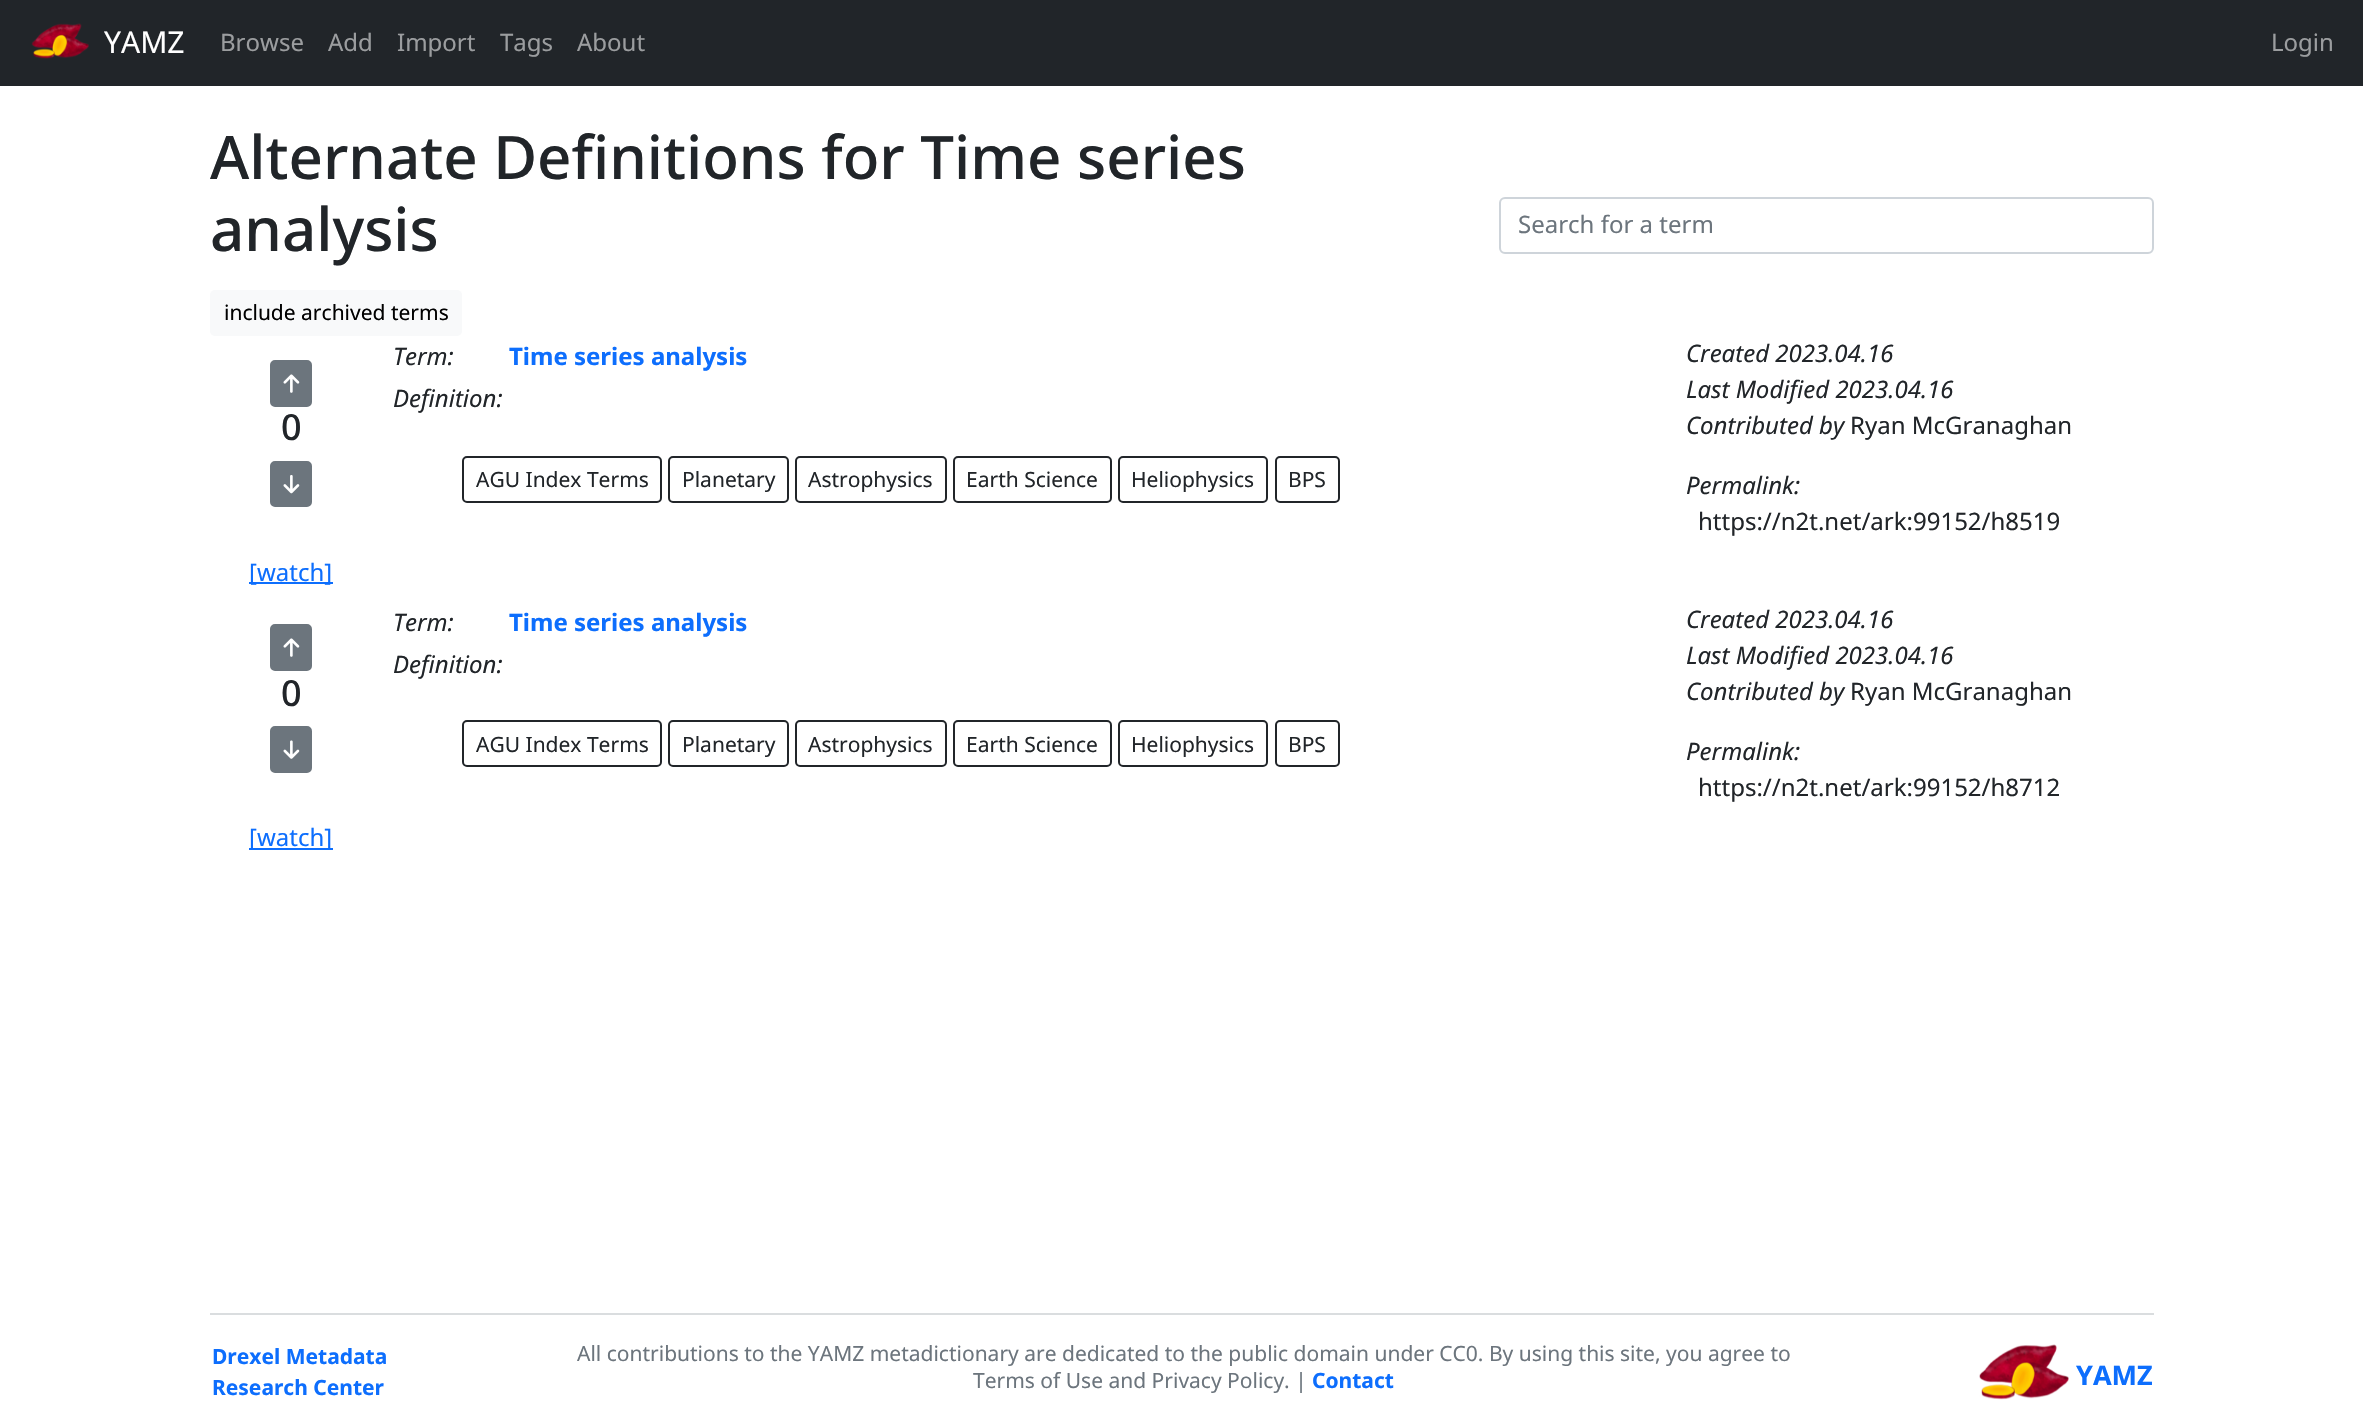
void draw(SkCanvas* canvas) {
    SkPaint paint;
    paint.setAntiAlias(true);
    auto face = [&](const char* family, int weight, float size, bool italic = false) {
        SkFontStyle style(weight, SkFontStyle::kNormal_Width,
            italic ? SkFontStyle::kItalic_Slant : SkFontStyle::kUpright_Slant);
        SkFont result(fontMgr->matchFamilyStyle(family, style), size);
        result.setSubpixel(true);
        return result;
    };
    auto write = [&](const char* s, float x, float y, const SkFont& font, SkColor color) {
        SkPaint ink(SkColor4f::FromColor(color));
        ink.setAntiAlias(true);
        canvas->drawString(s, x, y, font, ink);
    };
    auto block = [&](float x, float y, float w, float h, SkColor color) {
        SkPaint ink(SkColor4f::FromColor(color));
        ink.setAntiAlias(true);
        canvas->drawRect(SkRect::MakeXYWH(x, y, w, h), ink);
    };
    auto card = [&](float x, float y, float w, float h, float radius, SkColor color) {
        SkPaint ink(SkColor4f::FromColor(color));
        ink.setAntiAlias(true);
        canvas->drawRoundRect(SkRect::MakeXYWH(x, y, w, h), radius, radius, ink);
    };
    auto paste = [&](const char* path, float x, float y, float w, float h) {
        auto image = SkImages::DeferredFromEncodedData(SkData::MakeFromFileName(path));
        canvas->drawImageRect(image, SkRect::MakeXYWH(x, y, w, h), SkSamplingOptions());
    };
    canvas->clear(SK_ColorWHITE);
    block(0, 0, 2363, 86, SkColorSetRGB(33, 37, 41));
    paste("pic1.png", 31, 23, 58, 36);
    auto kFont1 = face("Noto Sans", 400, 30);
    write("YAMZ", 104, 53, kFont1, SK_ColorWHITE);
    auto kFont2 = face("Noto Sans", 400, 24);
    write("Browse", 220, 51, kFont2, SkColorSetRGB(155, 157, 159));
    write("Add", 328, 51, kFont2, SkColorSetRGB(155, 157, 159));
    write("Import", 397, 51, kFont2, SkColorSetRGB(155, 157, 159));
    write("Tags", 500, 51, kFont2, SkColorSetRGB(155, 157, 159));
    write("About", 577, 51, kFont2, SkColorSetRGB(155, 157, 159));
    write("Login", 2271, 51, kFont2, SkColorSetRGB(155, 157, 159));
    auto kFont3 = face("Noto Sans", 500, 60);
    write("Alternate Definitions for Time series", 210, 179, kFont3, SkColorSetRGB(33, 37, 41));
    write("analysis", 210, 251, kFont3, SkColorSetRGB(33, 37, 41));
    paint.setStyle(SkPaint::kStroke_Style);
    paint.setStrokeWidth(2);
    paint.setColor(SkColorSetRGB(206, 212, 218));
    canvas->drawRoundRect(SkRect::MakeXYWH(1500, 198, 653, 55), 5, 5, paint);
    write("Search for a term", 1518, 233, kFont2, SkColorSetRGB(108, 117, 125));
    card(210, 290, 252, 46, 5, SkColorSetRGB(248, 249, 250));
    auto kFont4 = face("Noto Sans", 400, 21);
    write("include archived terms", 224, 320, kFont4, SK_ColorBLACK);
    paint.setStyle(SkPaint::kFill_Style);
    paint.setColor(SkColorSetRGB(108, 117, 125));
    canvas->drawRoundRect(SkRect::MakeXYWH(271, 361, 40, 45), 4, 4, paint);
    paint.setStyle(SkPaint::kStroke_Style);
    canvas->drawRoundRect(SkRect::MakeXYWH(271, 361, 40, 45), 4, 4, paint);
    paste("pic2.png", 283, 374, 17, 19);
    auto kFont5 = face("Noto Sans", 500, 36);
    write("0", 281, 440, kFont5, SkColorSetRGB(33, 37, 41));
    paint.setStyle(SkPaint::kFill_Style);
    canvas->drawRoundRect(SkRect::MakeXYWH(271, 462, 40, 44), 4, 4, paint);
    paint.setStyle(SkPaint::kStroke_Style);
    canvas->drawRoundRect(SkRect::MakeXYWH(271, 462, 40, 44), 4, 4, paint);
    paste("pic3.png", 283, 475, 17, 19);
    block(249, 582, 84, 2, SkColorSetRGB(13, 110, 253));
    write("[watch]", 249, 581, kFont2, SkColorSetRGB(13, 110, 253));
    auto kFont6 = face("Noto Sans", 400, 24, true);
    write("Term:", 393, 365, kFont6, SkColorSetRGB(33, 37, 41));
    auto kFont7 = face("Noto Sans", 700, 24);
    write("Time series analysis", 509, 365, kFont7, SkColorSetRGB(13, 110, 253));
    write("Definition:", 393, 407, kFont6, SkColorSetRGB(33, 37, 41));
    paint.setColor(SkColorSetRGB(33, 37, 41));
    canvas->drawRoundRect(SkRect::MakeXYWH(463, 457, 198, 45), 4, 4, paint);
    write("AGU Index Terms", 476, 487, kFont4, SkColorSetRGB(33, 37, 41));
    canvas->drawRoundRect(SkRect::MakeXYWH(669, 457, 119, 45), 4, 4, paint);
    write("Planetary", 682, 487, kFont4, SkColorSetRGB(33, 37, 41));
    canvas->drawRoundRect(SkRect::MakeXYWH(796, 457, 150, 45), 4, 4, paint);
    write("Astrophysics", 808, 487, kFont4, SkColorSetRGB(33, 37, 41));
    canvas->drawRoundRect(SkRect::MakeXYWH(954, 457, 157, 45), 4, 4, paint);
    write("Earth Science", 966, 487, kFont4, SkColorSetRGB(33, 37, 41));
    canvas->drawRoundRect(SkRect::MakeXYWH(1119, 457, 148, 45), 4, 4, paint);
    write("Heliophysics", 1131, 487, kFont4, SkColorSetRGB(33, 37, 41));
    canvas->drawRoundRect(SkRect::MakeXYWH(1276, 457, 63, 45), 4, 4, paint);
    write("BPS", 1288, 487, kFont4, SkColorSetRGB(33, 37, 41));
    write("Created 2023.04.16", 1686, 362, kFont6, SkColorSetRGB(33, 37, 41));
    write("Last Modified 2023.04.16", 1686, 398, kFont6, SkColorSetRGB(33, 37, 41));
    write("Contributed by", 1686, 434, kFont6, SkColorSetRGB(33, 37, 41));
    write("Ryan McGranaghan", 1850, 434, kFont2, SkColorSetRGB(33, 37, 41));
    write("Permalink:", 1686, 494, kFont6, SkColorSetRGB(33, 37, 41));
    write("https://n2t.net/ark:99152/h8519", 1698, 530, kFont2, SkColorSetRGB(33, 37, 41));
    paint.setStyle(SkPaint::kFill_Style);
    paint.setColor(SkColorSetRGB(108, 117, 125));
    canvas->drawRoundRect(SkRect::MakeXYWH(271, 625, 40, 45), 4, 4, paint);
    paint.setStyle(SkPaint::kStroke_Style);
    canvas->drawRoundRect(SkRect::MakeXYWH(271, 625, 40, 45), 4, 4, paint);
    paste("pic2.png", 283, 638, 17, 19);
    write("0", 281, 706, kFont5, SkColorSetRGB(33, 37, 41));
    paint.setStyle(SkPaint::kFill_Style);
    canvas->drawRoundRect(SkRect::MakeXYWH(271, 727, 40, 45), 4, 4, paint);
    paint.setStyle(SkPaint::kStroke_Style);
    canvas->drawRoundRect(SkRect::MakeXYWH(271, 727, 40, 45), 4, 4, paint);
    paste("pic4.png", 283, 740, 17, 19);
    block(249, 848, 84, 2, SkColorSetRGB(13, 110, 253));
    write("[watch]", 249, 846, kFont2, SkColorSetRGB(13, 110, 253));
    write("Term:", 393, 631, kFont6, SkColorSetRGB(33, 37, 41));
    write("Time series analysis", 509, 631, kFont7, SkColorSetRGB(13, 110, 253));
    write("Definition:", 393, 673, kFont6, SkColorSetRGB(33, 37, 41));
    paint.setColor(SkColorSetRGB(33, 37, 41));
    canvas->drawRoundRect(SkRect::MakeXYWH(463, 721, 198, 45), 4, 4, paint);
    write("AGU Index Terms", 476, 752, kFont4, SkColorSetRGB(33, 37, 41));
    canvas->drawRoundRect(SkRect::MakeXYWH(669, 721, 119, 45), 4, 4, paint);
    write("Planetary", 682, 752, kFont4, SkColorSetRGB(33, 37, 41));
    canvas->drawRoundRect(SkRect::MakeXYWH(796, 721, 150, 45), 4, 4, paint);
    write("Astrophysics", 808, 752, kFont4, SkColorSetRGB(33, 37, 41));
    canvas->drawRoundRect(SkRect::MakeXYWH(954, 721, 157, 45), 4, 4, paint);
    write("Earth Science", 966, 752, kFont4, SkColorSetRGB(33, 37, 41));
    canvas->drawRoundRect(SkRect::MakeXYWH(1119, 721, 148, 45), 4, 4, paint);
    write("Heliophysics", 1131, 752, kFont4, SkColorSetRGB(33, 37, 41));
    canvas->drawRoundRect(SkRect::MakeXYWH(1276, 721, 63, 45), 4, 4, paint);
    write("BPS", 1288, 752, kFont4, SkColorSetRGB(33, 37, 41));
    write("Created 2023.04.16", 1686, 628, kFont6, SkColorSetRGB(33, 37, 41));
    write("Last Modified 2023.04.16", 1686, 664, kFont6, SkColorSetRGB(33, 37, 41));
    write("Contributed by", 1686, 700, kFont6, SkColorSetRGB(33, 37, 41));
    write("Ryan McGranaghan", 1850, 700, kFont2, SkColorSetRGB(33, 37, 41));
    write("Permalink:", 1686, 760, kFont6, SkColorSetRGB(33, 37, 41));
    write("https://n2t.net/ark:99152/h8712", 1698, 796, kFont2, SkColorSetRGB(33, 37, 41));
    block(210, 1313, 1944, 2, SkColorSetRGB(218, 221, 223));
    auto kFont8 = face("Noto Sans", 700, 21);
    write("Drexel Metadata", 212, 1364, kFont8, SkColorSetRGB(13, 110, 253));
    write("Research Center", 212, 1395, kFont8, SkColorSetRGB(13, 110, 253));
    write("All contributions to the YAMZ metadictionary are dedicated to the public domain under CC0. By using this site, you agree to", 577, 1361, kFont4, SkColorSetRGB(108, 117, 125));
    write("Terms of Use and Privacy Policy. |", 973, 1388, kFont4, SkColorSetRGB(108, 117, 125));
    write("Contact", 1312, 1388, kFont8, SkColorSetRGB(13, 110, 253));
    paste("pic5.png", 1979, 1344, 90, 56);
    auto kFont9 = face("Noto Sans", 700, 27);
    write("YAMZ", 2076, 1385, kFont9, SkColorSetRGB(13, 110, 253));
}
